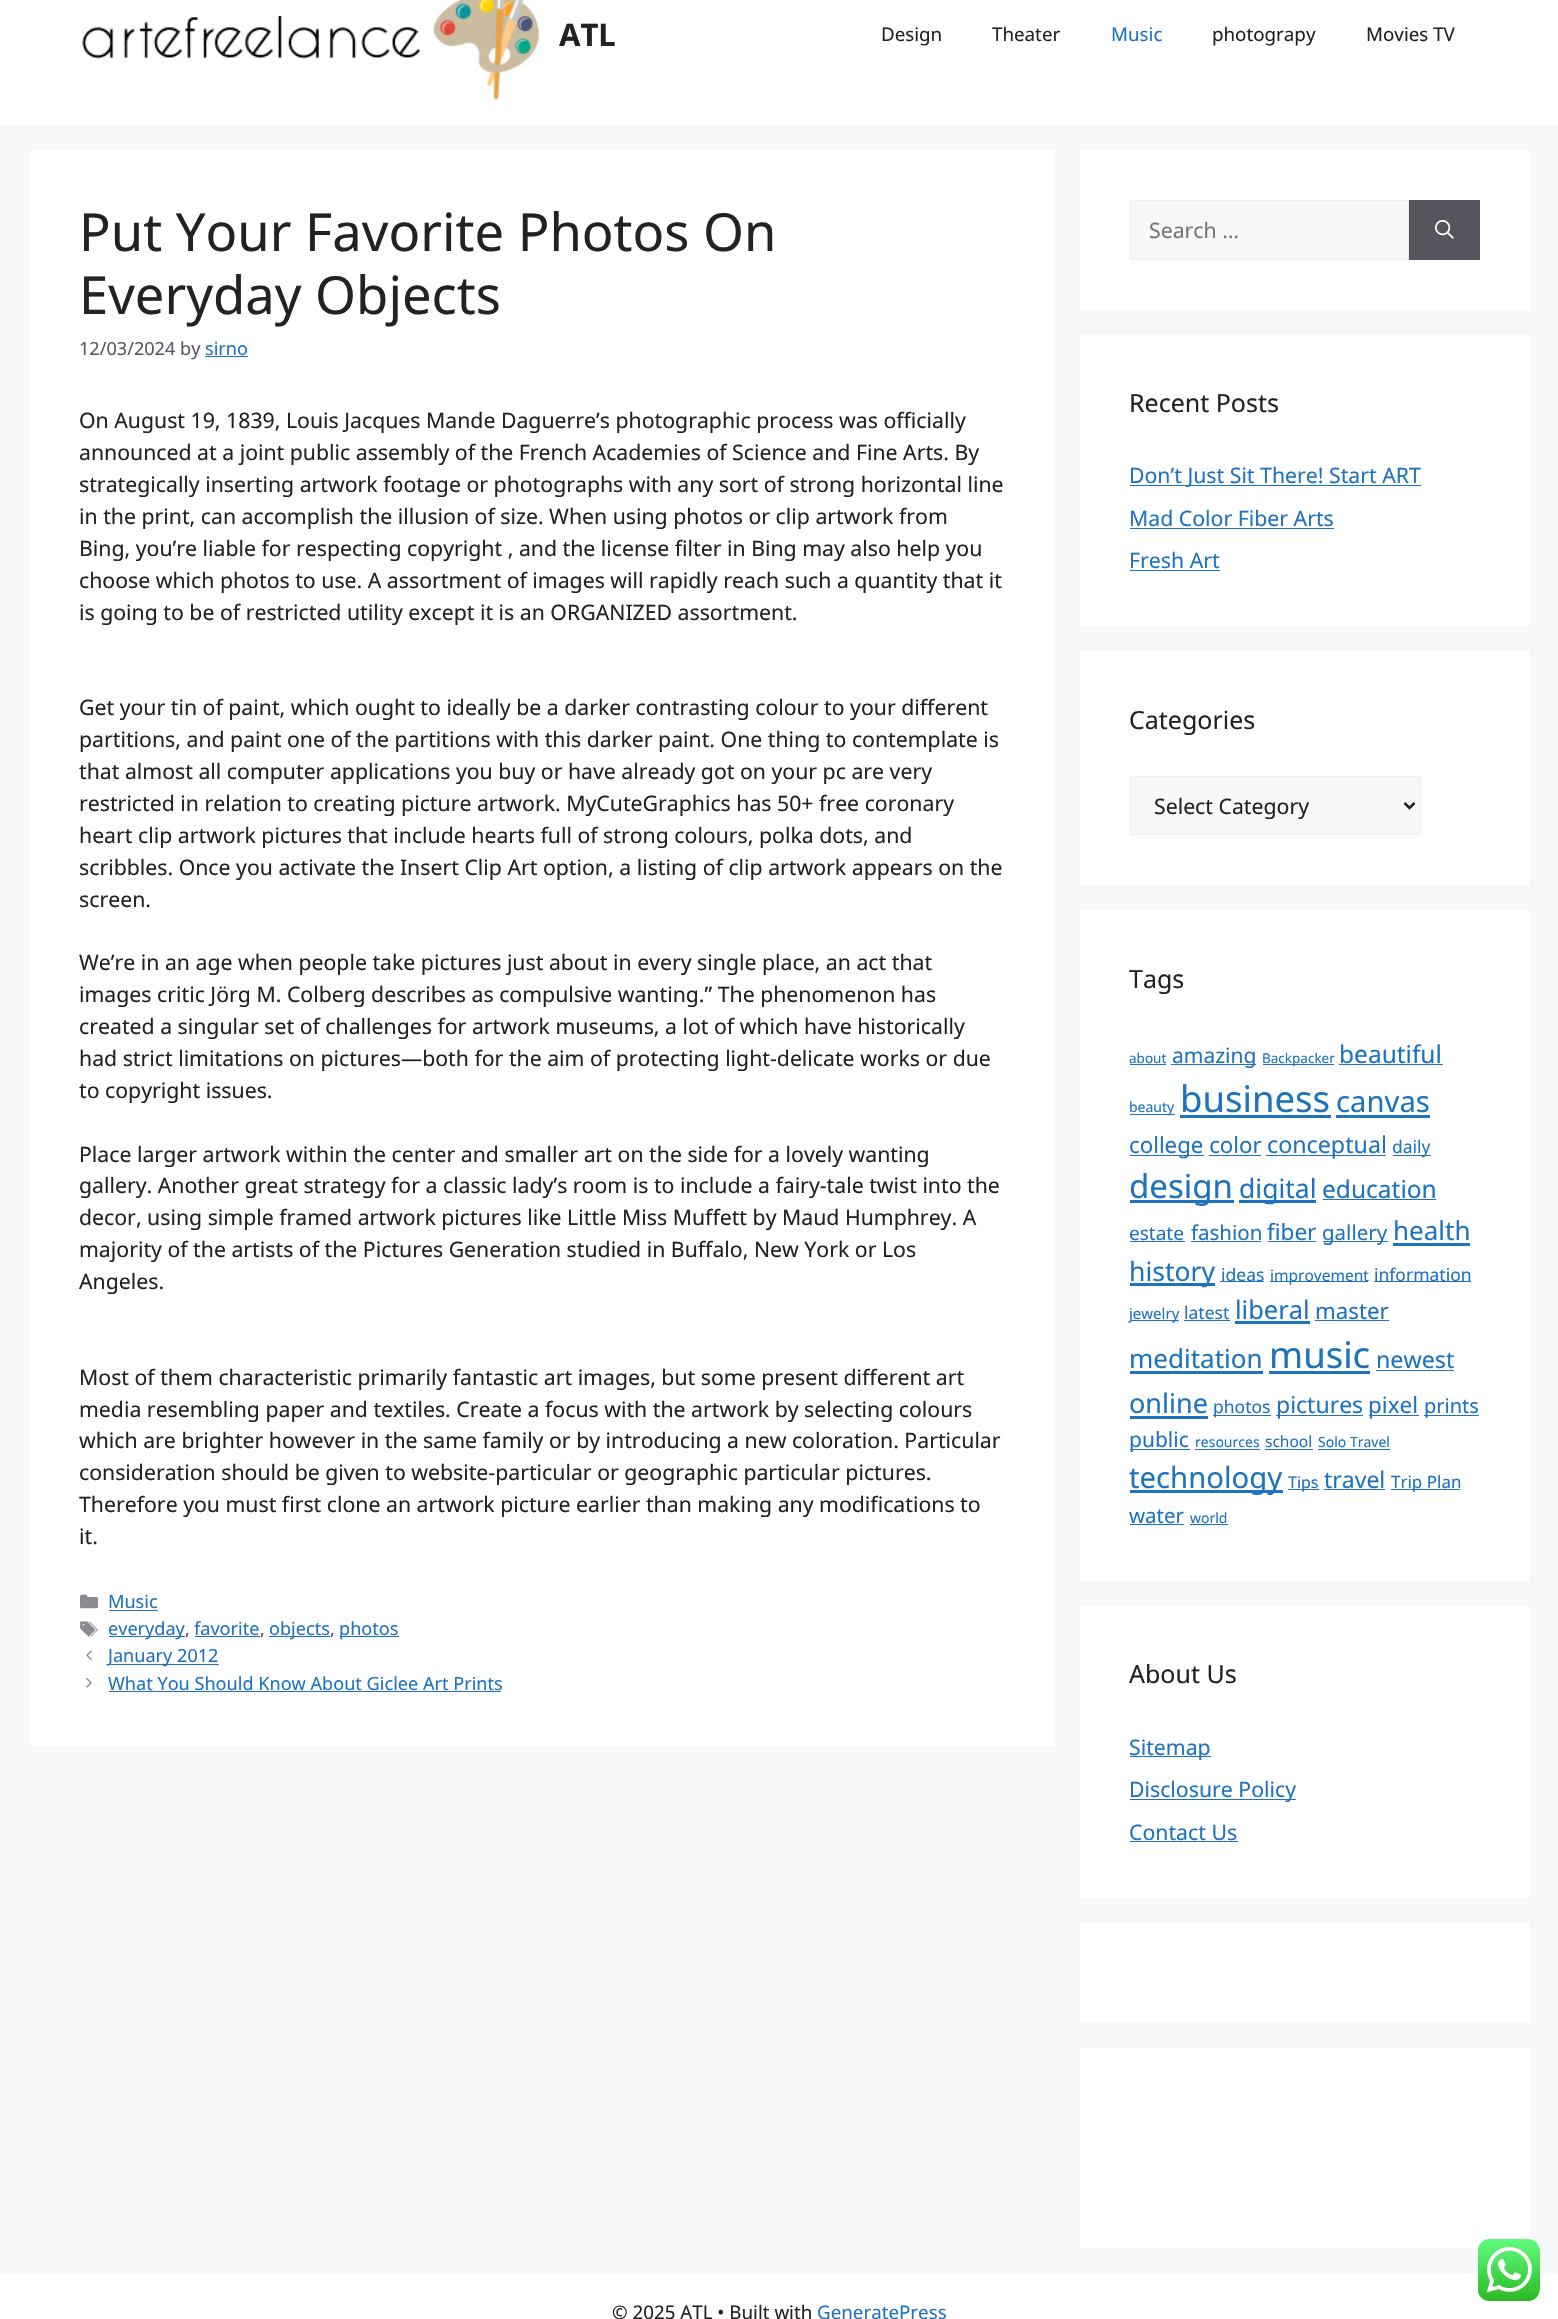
void draw(SkCanvas* canvas) {
    SkPaint paint;
    paint.setAntiAlias(true);
    auto face = [&](const char* family, int weight, float size, bool italic = false) {
        SkFontStyle style(weight, SkFontStyle::kNormal_Width,
            italic ? SkFontStyle::kItalic_Slant : SkFontStyle::kUpright_Slant);
        SkFont result(fontMgr->matchFamilyStyle(family, style), size);
        result.setSubpixel(true);
        return result;
    };
    auto write = [&](const char* s, float x, float y, const SkFont& font, SkColor color) {
        SkPaint ink(SkColor4f::FromColor(color));
        ink.setAntiAlias(true);
        canvas->drawString(s, x, y, font, ink);
    };
    auto block = [&](float x, float y, float w, float h, SkColor color) {
        SkPaint ink(SkColor4f::FromColor(color));
        ink.setAntiAlias(true);
        canvas->drawRect(SkRect::MakeXYWH(x, y, w, h), ink);
    };
    auto paste = [&](const char* path, float x, float y, float w, float h) {
        auto image = SkImages::DeferredFromEncodedData(SkData::MakeFromFileName(path));
        canvas->drawImageRect(image, SkRect::MakeXYWH(x, y, w, h), SkSamplingOptions());
    };
    canvas->clear(SkColorSetRGB(247, 248, 249));
    block(0, 0, 1558, 125, SK_ColorWHITE);
    paste("pic1.png", 82, 0, 457, 100);
    auto kFont1 = face("Noto Sans", 700, 31);
    write("ATL", 559, 46, kFont1, SkColorSetRGB(34, 34, 34));
    auto kFont2 = face("Noto Sans", 400, 18.75f);
    write("Design", 881, 41, kFont2, SkColorSetRGB(34, 34, 34));
    write("Theater", 992, 41, kFont2, SkColorSetRGB(34, 34, 34));
    write("Music", 1111, 41, kFont2, SkColorSetRGB(30, 115, 190));
    write("photograpy", 1212, 41, kFont2, SkColorSetRGB(34, 34, 34));
    write("Movies TV", 1366, 41, kFont2, SkColorSetRGB(34, 34, 34));
    block(30, 150, 1025, 1596, SK_ColorWHITE);
    auto kFont3 = face("Noto Sans", 400, 52.5f);
    write("Put Your Favorite Photos On", 79, 251, kFont3, SkColorSetRGB(34, 34, 34));
    write("Everyday Objects", 79, 314, kFont3, SkColorSetRGB(34, 34, 34));
    auto kFont4 = face("Noto Sans", 400, 18.1f);
    write("12/03/2024 by", 79, 355, kFont4, SkColorSetRGB(87, 87, 96));
    write("sirno", 205, 355, kFont4, SkColorSetRGB(30, 115, 190));
    block(205, 356, 43, 1, SkColorSetRGB(30, 115, 190));
    auto kFont5 = face("Noto Sans", 400, 21.25f);
    write("On August 19, 1839, Louis Jacques Mande Daguerre’s photographic process was officially", 79, 428, kFont5, SkColorSetRGB(34, 34, 34));
    write("announced at a joint public assembly of the French Academies of Science and Fine Arts. By", 79, 460, kFont5, SkColorSetRGB(34, 34, 34));
    write("strategically inserting artwork footage or photographs with any sort of strong horizontal line", 79, 492, kFont5, SkColorSetRGB(34, 34, 34));
    write("in the print, can accomplish the illusion of size. When using photos or clip artwork from", 79, 524, kFont5, SkColorSetRGB(34, 34, 34));
    write("Bing, you’re liable for respecting copyright , and the license filter in Bing may also help you", 79, 556, kFont5, SkColorSetRGB(34, 34, 34));
    write("choose which photos to use. A assortment of images will rapidly reach such a quantity that it", 79, 588, kFont5, SkColorSetRGB(34, 34, 34));
    write("is going to be of restricted utility except it is an ORGANIZED assortment.", 79, 620, kFont5, SkColorSetRGB(34, 34, 34));
    write("Get your tin of paint, which ought to ideally be a darker contrasting colour to your different", 79, 715, kFont5, SkColorSetRGB(34, 34, 34));
    write("partitions, and paint one of the partitions with this darker paint. One thing to contemplate is", 79, 747, kFont5, SkColorSetRGB(34, 34, 34));
    write("that almost all computer applications you buy or have already got on your pc are very", 79, 779, kFont5, SkColorSetRGB(34, 34, 34));
    write("restricted in relation to creating picture artwork. MyCuteGraphics has 50+ free coronary", 79, 811, kFont5, SkColorSetRGB(34, 34, 34));
    write("heart clip artwork pictures that include hearts full of strong colours, polka dots, and", 79, 843, kFont5, SkColorSetRGB(34, 34, 34));
    write("scribbles. Once you activate the Insert Clip Art option, a listing of clip artwork appears on the", 79, 875, kFont5, SkColorSetRGB(34, 34, 34));
    write("screen.", 79, 907, kFont5, SkColorSetRGB(34, 34, 34));
    write("We’re in an age when people take pictures just about in every single place, an act that", 79, 970, kFont5, SkColorSetRGB(34, 34, 34));
    write("images critic Jörg M. Colberg describes as compulsive wanting.” The phenomenon has", 79, 1002, kFont5, SkColorSetRGB(34, 34, 34));
    write("created a singular set of challenges for artwork museums, a lot of which have historically", 79, 1034, kFont5, SkColorSetRGB(34, 34, 34));
    write("had strict limitations on pictures—both for the aim of protecting light-delicate works or due", 79, 1066, kFont5, SkColorSetRGB(34, 34, 34));
    write("to copyright issues.", 79, 1098, kFont5, SkColorSetRGB(34, 34, 34));
    write("Place larger artwork within the center and smaller art on the side for a lovely wanting", 79, 1162, kFont5, SkColorSetRGB(34, 34, 34));
    write("gallery. Another great strategy for a classic lady’s room is to include a fairy-tale twist into the", 79, 1193, kFont5, SkColorSetRGB(34, 34, 34));
    write("decor, using simple framed artwork pictures like Little Miss Muffett by Maud Humphrey. A", 79, 1225, kFont5, SkColorSetRGB(34, 34, 34));
    write("majority of the artists of the Pictures Generation studied in Buffalo, New York or Los", 79, 1257, kFont5, SkColorSetRGB(34, 34, 34));
    write("Angeles.", 79, 1289, kFont5, SkColorSetRGB(34, 34, 34));
    write("Most of them characteristic primarily fantastic art images, but some present different art", 79, 1385, kFont5, SkColorSetRGB(34, 34, 34));
    write("media resembling paper and textiles. Create a focus with the artwork by selecting colours", 79, 1417, kFont5, SkColorSetRGB(34, 34, 34));
    write("which are brighter however in the same family or by introducing a new coloration. Particular", 79, 1448, kFont5, SkColorSetRGB(34, 34, 34));
    write("consideration should be given to website-particular or geographic particular pictures.", 79, 1480, kFont5, SkColorSetRGB(34, 34, 34));
    write("Therefore you must first clone an artwork picture earlier than making any modifications to", 79, 1512, kFont5, SkColorSetRGB(34, 34, 34));
    write("it.", 79, 1544, kFont5, SkColorSetRGB(34, 34, 34));
    paste("pic2.png", 80, 1594, 18, 15);
    write("Music", 108, 1608, kFont4, SkColorSetRGB(30, 115, 190));
    block(109, 1610, 49, 1, SkColorSetRGB(30, 115, 190));
    paste("pic3.png", 80, 1621, 18, 16);
    block(109, 1636, 76, 1, SkColorSetRGB(30, 115, 190));
    write("everyday", 108, 1635, kFont4, SkColorSetRGB(30, 115, 190));
    write(",", 185, 1635, kFont4, SkColorSetRGB(87, 87, 96));
    write("favorite", 194, 1635, kFont4, SkColorSetRGB(30, 115, 190));
    block(195, 1636, 65, 1, SkColorSetRGB(30, 115, 190));
    write(",", 260, 1635, kFont4, SkColorSetRGB(87, 87, 96));
    block(269, 1636, 61, 1, SkColorSetRGB(30, 115, 190));
    write("objects", 269, 1635, kFont4, SkColorSetRGB(30, 115, 190));
    write(",", 330, 1635, kFont4, SkColorSetRGB(87, 87, 96));
    block(340, 1636, 59, 1, SkColorSetRGB(30, 115, 190));
    write("photos", 339, 1635, kFont4, SkColorSetRGB(30, 115, 190));
    paste("pic4.png", 86, 1650, 6, 11);
    block(109, 1664, 110, 1, SkColorSetRGB(30, 115, 190));
    write("January 2012", 108, 1662, kFont4, SkColorSetRGB(30, 115, 190));
    paste("pic5.png", 86, 1677, 6, 11);
    write("What You Should Know About Giclee Art Prints", 108, 1690, kFont4, SkColorSetRGB(30, 115, 190));
    block(109, 1691, 392, 1, SkColorSetRGB(30, 115, 190));
    block(1080, 150, 450, 160, SK_ColorWHITE);
    paint.setColor(SkColorSetRGB(247, 248, 249));
    canvas->drawRect(SkRect::MakeXYWH(1130.5f, 200.5f, 278, 59), paint);
    paint.setStyle(SkPaint::kStroke_Style);
    paint.setStrokeWidth(1);
    paint.setColor(SkColorSetRGB(240, 240, 240));
    canvas->drawRect(SkRect::MakeXYWH(1130.5f, 200.5f, 278, 59), paint);
    write("Search …", 1149, 238, kFont5, SkColorSetRGB(117, 117, 117));
    block(1409, 200, 71, 60, SkColorSetRGB(85, 85, 94));
    paste("pic6.png", 1435, 220, 19, 19);
    block(1080, 335, 450, 291, SK_ColorWHITE);
    auto kFont6 = face("Noto Sans", 400, 25);
    write("Recent Posts", 1129, 412, kFont6, SkColorSetRGB(34, 34, 34));
    block(1130, 485, 291, 1, SkColorSetRGB(30, 115, 190));
    write("Don’t Just Sit There! Start ART", 1129, 483, kFont5, SkColorSetRGB(30, 115, 190));
    write("Mad Color Fiber Arts", 1129, 526, kFont5, SkColorSetRGB(30, 115, 190));
    block(1130, 528, 204, 1, SkColorSetRGB(30, 115, 190));
    write("Fresh Art", 1129, 568, kFont5, SkColorSetRGB(30, 115, 190));
    block(1130, 570, 90, 1, SkColorSetRGB(30, 115, 190));
    block(1080, 651, 450, 234, SK_ColorWHITE);
    write("Categories", 1129, 729, kFont6, SkColorSetRGB(34, 34, 34));
    paint.setStyle(SkPaint::kFill_Style);
    paint.setColor(SkColorSetRGB(247, 248, 249));
    canvas->drawRect(SkRect::MakeXYWH(1130.5f, 776.5f, 290, 58), paint);
    paint.setStyle(SkPaint::kStroke_Style);
    paint.setColor(SkColorSetRGB(240, 240, 240));
    canvas->drawRect(SkRect::MakeXYWH(1130.5f, 776.5f, 290, 58), paint);
    paint.setStrokeWidth(2.5f);
    paint.setColor(SkColorSetRGB(34, 34, 34));
    canvas->drawPath(SkPathBuilder().moveTo(1404.5f, 803).lineTo(1409.5f, 808).lineTo(1414.5f, 803).detach(), paint);
    write("Select Category", 1154, 814, kFont5, SkColorSetRGB(34, 34, 34));
    block(1080, 910, 450, 671, SK_ColorWHITE);
    write("Tags", 1129, 988, kFont6, SkColorSetRGB(34, 34, 34));
    auto kFont7 = face("Noto Sans", 400, 13.5f);
    write("about", 1129, 1063, kFont7, SkColorSetRGB(30, 115, 190));
    block(1130, 1064, 36, 1, SkColorSetRGB(30, 115, 190));
    block(1171, 1064, 85, 1, SkColorSetRGB(30, 115, 190));
    auto kFont8 = face("Noto Sans", 400, 21);
    write("amazing", 1172, 1063, kFont8, SkColorSetRGB(30, 115, 190));
    block(1263, 1064, 71, 1, SkColorSetRGB(30, 115, 190));
    write("Backpacker", 1262, 1063, kFont7, SkColorSetRGB(30, 115, 190));
    auto kFont9 = face("Noto Sans", 400, 24.5f);
    write("beautiful", 1339, 1063, kFont9, SkColorSetRGB(30, 115, 190));
    block(1339, 1064, 104, 1, SkColorSetRGB(30, 115, 190));
    block(1130, 1114, 45, 1, SkColorSetRGB(30, 115, 190));
    auto kFont10 = face("Noto Sans", 400, 14);
    write("beauty", 1129, 1112, kFont10, SkColorSetRGB(30, 115, 190));
    auto kFont11 = face("Noto Sans", 400, 36.5f);
    write("business", 1180, 1112, kFont11, SkColorSetRGB(30, 115, 190));
    block(1180, 1115, 151, 3, SkColorSetRGB(30, 115, 190));
    auto kFont12 = face("Noto Sans", 400, 29.25f);
    write("canvas", 1336, 1112, kFont12, SkColorSetRGB(30, 115, 190));
    block(1336, 1115, 94, 3, SkColorSetRGB(30, 115, 190));
    block(1130, 1155, 74, 1, SkColorSetRGB(30, 115, 190));
    auto kFont13 = face("Noto Sans", 400, 22.25f);
    write("college color", 1129, 1153, kFont13, SkColorSetRGB(30, 115, 190));
    block(1266, 1155, 120, 1, SkColorSetRGB(30, 115, 190));
    auto kFont14 = face("Noto Sans", 400, 23.25f);
    write("conceptual", 1267, 1153, kFont14, SkColorSetRGB(30, 115, 190));
    block(1393, 1155, 38, 1, SkColorSetRGB(30, 115, 190));
    auto kFont15 = face("Noto Sans", 400, 17.5f);
    write("daily", 1392, 1153, kFont15, SkColorSetRGB(30, 115, 190));
    block(1209, 1155, 52, 1, SkColorSetRGB(30, 115, 190));
    block(1130, 1200, 104, 3, SkColorSetRGB(30, 115, 190));
    auto kFont16 = face("Noto Sans", 400, 33);
    write("design", 1129, 1198, kFont16, SkColorSetRGB(30, 115, 190));
    block(1239, 1200, 77, 3, SkColorSetRGB(30, 115, 190));
    auto kFont17 = face("Noto Sans", 400, 26.5f);
    write("digital", 1239, 1198, kFont17, SkColorSetRGB(30, 115, 190));
    write("education", 1322, 1198, kFont9, SkColorSetRGB(30, 115, 190));
    block(1323, 1199, 113, 1, SkColorSetRGB(30, 115, 190));
    auto kFont18 = face("Noto Sans", 400, 19);
    write("estate", 1129, 1240, kFont18, SkColorSetRGB(30, 115, 190));
    block(1130, 1241, 55, 1, SkColorSetRGB(30, 115, 190));
    auto kFont19 = face("Noto Sans", 400, 20.5f);
    write("fashion", 1191, 1240, kFont19, SkColorSetRGB(30, 115, 190));
    block(1191, 1241, 70, 1, SkColorSetRGB(30, 115, 190));
    auto kFont20 = face("Noto Sans", 400, 22.5f);
    write("fiber", 1267, 1240, kFont20, SkColorSetRGB(30, 115, 190));
    block(1268, 1241, 48, 1, SkColorSetRGB(30, 115, 190));
    block(1323, 1241, 65, 1, SkColorSetRGB(30, 115, 190));
    write("gallery", 1322, 1240, kFont19, SkColorSetRGB(30, 115, 190));
    auto kFont21 = face("Noto Sans", 400, 26);
    write("health", 1393, 1240, kFont21, SkColorSetRGB(30, 115, 190));
    block(1393, 1243, 77, 3, SkColorSetRGB(30, 115, 190));
    block(1130, 1283, 85, 3, SkColorSetRGB(30, 115, 190));
    write("history", 1129, 1281, kFont17, SkColorSetRGB(30, 115, 190));
    block(1220, 1281, 44, 1, SkColorSetRGB(30, 115, 190));
    write("ideas", 1221, 1281, kFont15, SkColorSetRGB(30, 115, 190));
    block(1270, 1281, 98, 1, SkColorSetRGB(30, 115, 190));
    auto kFont22 = face("Noto Sans", 400, 15.5f);
    write("improvement", 1270, 1281, kFont22, SkColorSetRGB(30, 115, 190));
    block(1374, 1281, 97, 1, SkColorSetRGB(30, 115, 190));
    write("information", 1374, 1281, kFont15, SkColorSetRGB(30, 115, 190));
    block(1130, 1320, 49, 1, SkColorSetRGB(30, 115, 190));
    auto kFont23 = face("Noto Sans", 400, 15);
    write("jewelry", 1129, 1319, kFont23, SkColorSetRGB(30, 115, 190));
    write("latest", 1184, 1319, kFont15, SkColorSetRGB(30, 115, 190));
    block(1184, 1320, 46, 1, SkColorSetRGB(30, 115, 190));
    auto kFont24 = face("Noto Sans", 400, 25.5f);
    write("liberal", 1235, 1319, kFont24, SkColorSetRGB(30, 115, 190));
    block(1235, 1321, 75, 3, SkColorSetRGB(30, 115, 190));
    write("master", 1315, 1319, kFont13, SkColorSetRGB(30, 115, 190));
    block(1315, 1320, 74, 1, SkColorSetRGB(30, 115, 190));
    write("meditation", 1129, 1368, kFont21, SkColorSetRGB(30, 115, 190));
    block(1130, 1371, 133, 3, SkColorSetRGB(30, 115, 190));
    write("music", 1269, 1368, kFont11, SkColorSetRGB(30, 115, 190));
    block(1269, 1371, 101, 3, SkColorSetRGB(30, 115, 190));
    write("newest", 1376, 1368, kFont14, SkColorSetRGB(30, 115, 190));
    block(1376, 1370, 78, 1, SkColorSetRGB(30, 115, 190));
    auto kFont25 = face("Noto Sans", 400, 27);
    write("online", 1129, 1413, kFont25, SkColorSetRGB(30, 115, 190));
    block(1130, 1416, 78, 3, SkColorSetRGB(30, 115, 190));
    block(1213, 1415, 58, 1, SkColorSetRGB(30, 115, 190));
    write("photos", 1213, 1413, kFont15, SkColorSetRGB(30, 115, 190));
    block(1276, 1415, 87, 1, SkColorSetRGB(30, 115, 190));
    auto kFont26 = face("Noto Sans", 400, 23);
    write("pictures", 1276, 1413, kFont26, SkColorSetRGB(30, 115, 190));
    block(1369, 1415, 50, 1, SkColorSetRGB(30, 115, 190));
    write("pixel", 1368, 1413, kFont20, SkColorSetRGB(30, 115, 190));
    block(1424, 1415, 55, 1, SkColorSetRGB(30, 115, 190));
    auto kFont27 = face("Noto Sans", 400, 20);
    write("prints", 1424, 1413, kFont27, SkColorSetRGB(30, 115, 190));
    block(1130, 1449, 60, 1, SkColorSetRGB(30, 115, 190));
    write("public", 1129, 1447, kFont8, SkColorSetRGB(30, 115, 190));
    write("resources", 1195, 1447, kFont10, SkColorSetRGB(30, 115, 190));
    block(1195, 1449, 65, 1, SkColorSetRGB(30, 115, 190));
    write("school", 1265, 1447, kFont22, SkColorSetRGB(30, 115, 190));
    block(1265, 1449, 48, 1, SkColorSetRGB(30, 115, 190));
    write("Solo Travel", 1318, 1447, kFont10, SkColorSetRGB(30, 115, 190));
    block(1318, 1449, 72, 1, SkColorSetRGB(30, 115, 190));
    block(1130, 1490, 153, 3, SkColorSetRGB(30, 115, 190));
    write("technology", 1129, 1488, kFont12, SkColorSetRGB(30, 115, 190));
    block(1288, 1489, 31, 1, SkColorSetRGB(30, 115, 190));
    auto kFont28 = face("Noto Sans", 400, 16);
    write("Tips", 1288, 1488, kFont28, SkColorSetRGB(30, 115, 190));
    write("travel", 1324, 1488, kFont26, SkColorSetRGB(30, 115, 190));
    block(1324, 1489, 61, 1, SkColorSetRGB(30, 115, 190));
    block(1391, 1489, 69, 1, SkColorSetRGB(30, 115, 190));
    auto kFont29 = face("Noto Sans", 400, 17);
    write("Trip Plan", 1391, 1488, kFont29, SkColorSetRGB(30, 115, 190));
    write("water", 1129, 1523, kFont19, SkColorSetRGB(30, 115, 190));
    block(1130, 1524, 54, 1, SkColorSetRGB(30, 115, 190));
    write("world", 1190, 1523, kFont10, SkColorSetRGB(30, 115, 190));
    block(1190, 1524, 38, 1, SkColorSetRGB(30, 115, 190));
    block(1080, 1606, 450, 292, SK_ColorWHITE);
    write("About Us", 1129, 1683, kFont6, SkColorSetRGB(34, 34, 34));
    block(1130, 1756, 81, 1, SkColorSetRGB(30, 115, 190));
    write("Sitemap", 1129, 1755, kFont5, SkColorSetRGB(30, 115, 190));
    block(1130, 1799, 166, 1, SkColorSetRGB(30, 115, 190));
    write("Disclosure Policy", 1129, 1797, kFont5, SkColorSetRGB(30, 115, 190));
    write("Contact Us", 1129, 1840, kFont5, SkColorSetRGB(30, 115, 190));
    block(1130, 1841, 108, 1, SkColorSetRGB(30, 115, 190));
    block(1080, 1923, 450, 100, SK_ColorWHITE);
    block(1080, 2048, 450, 200, SK_ColorWHITE);
    block(0, 2273, 1558, 46, SK_ColorWHITE);
    paste("pic7.png", 1478, 2239, 62, 62);
    write("© 2025 ATL • Built with", 612, 2319, kFont2, SkColorSetRGB(34, 34, 34));
    write("GeneratePress", 817, 2319, kFont2, SkColorSetRGB(30, 115, 190));
}
